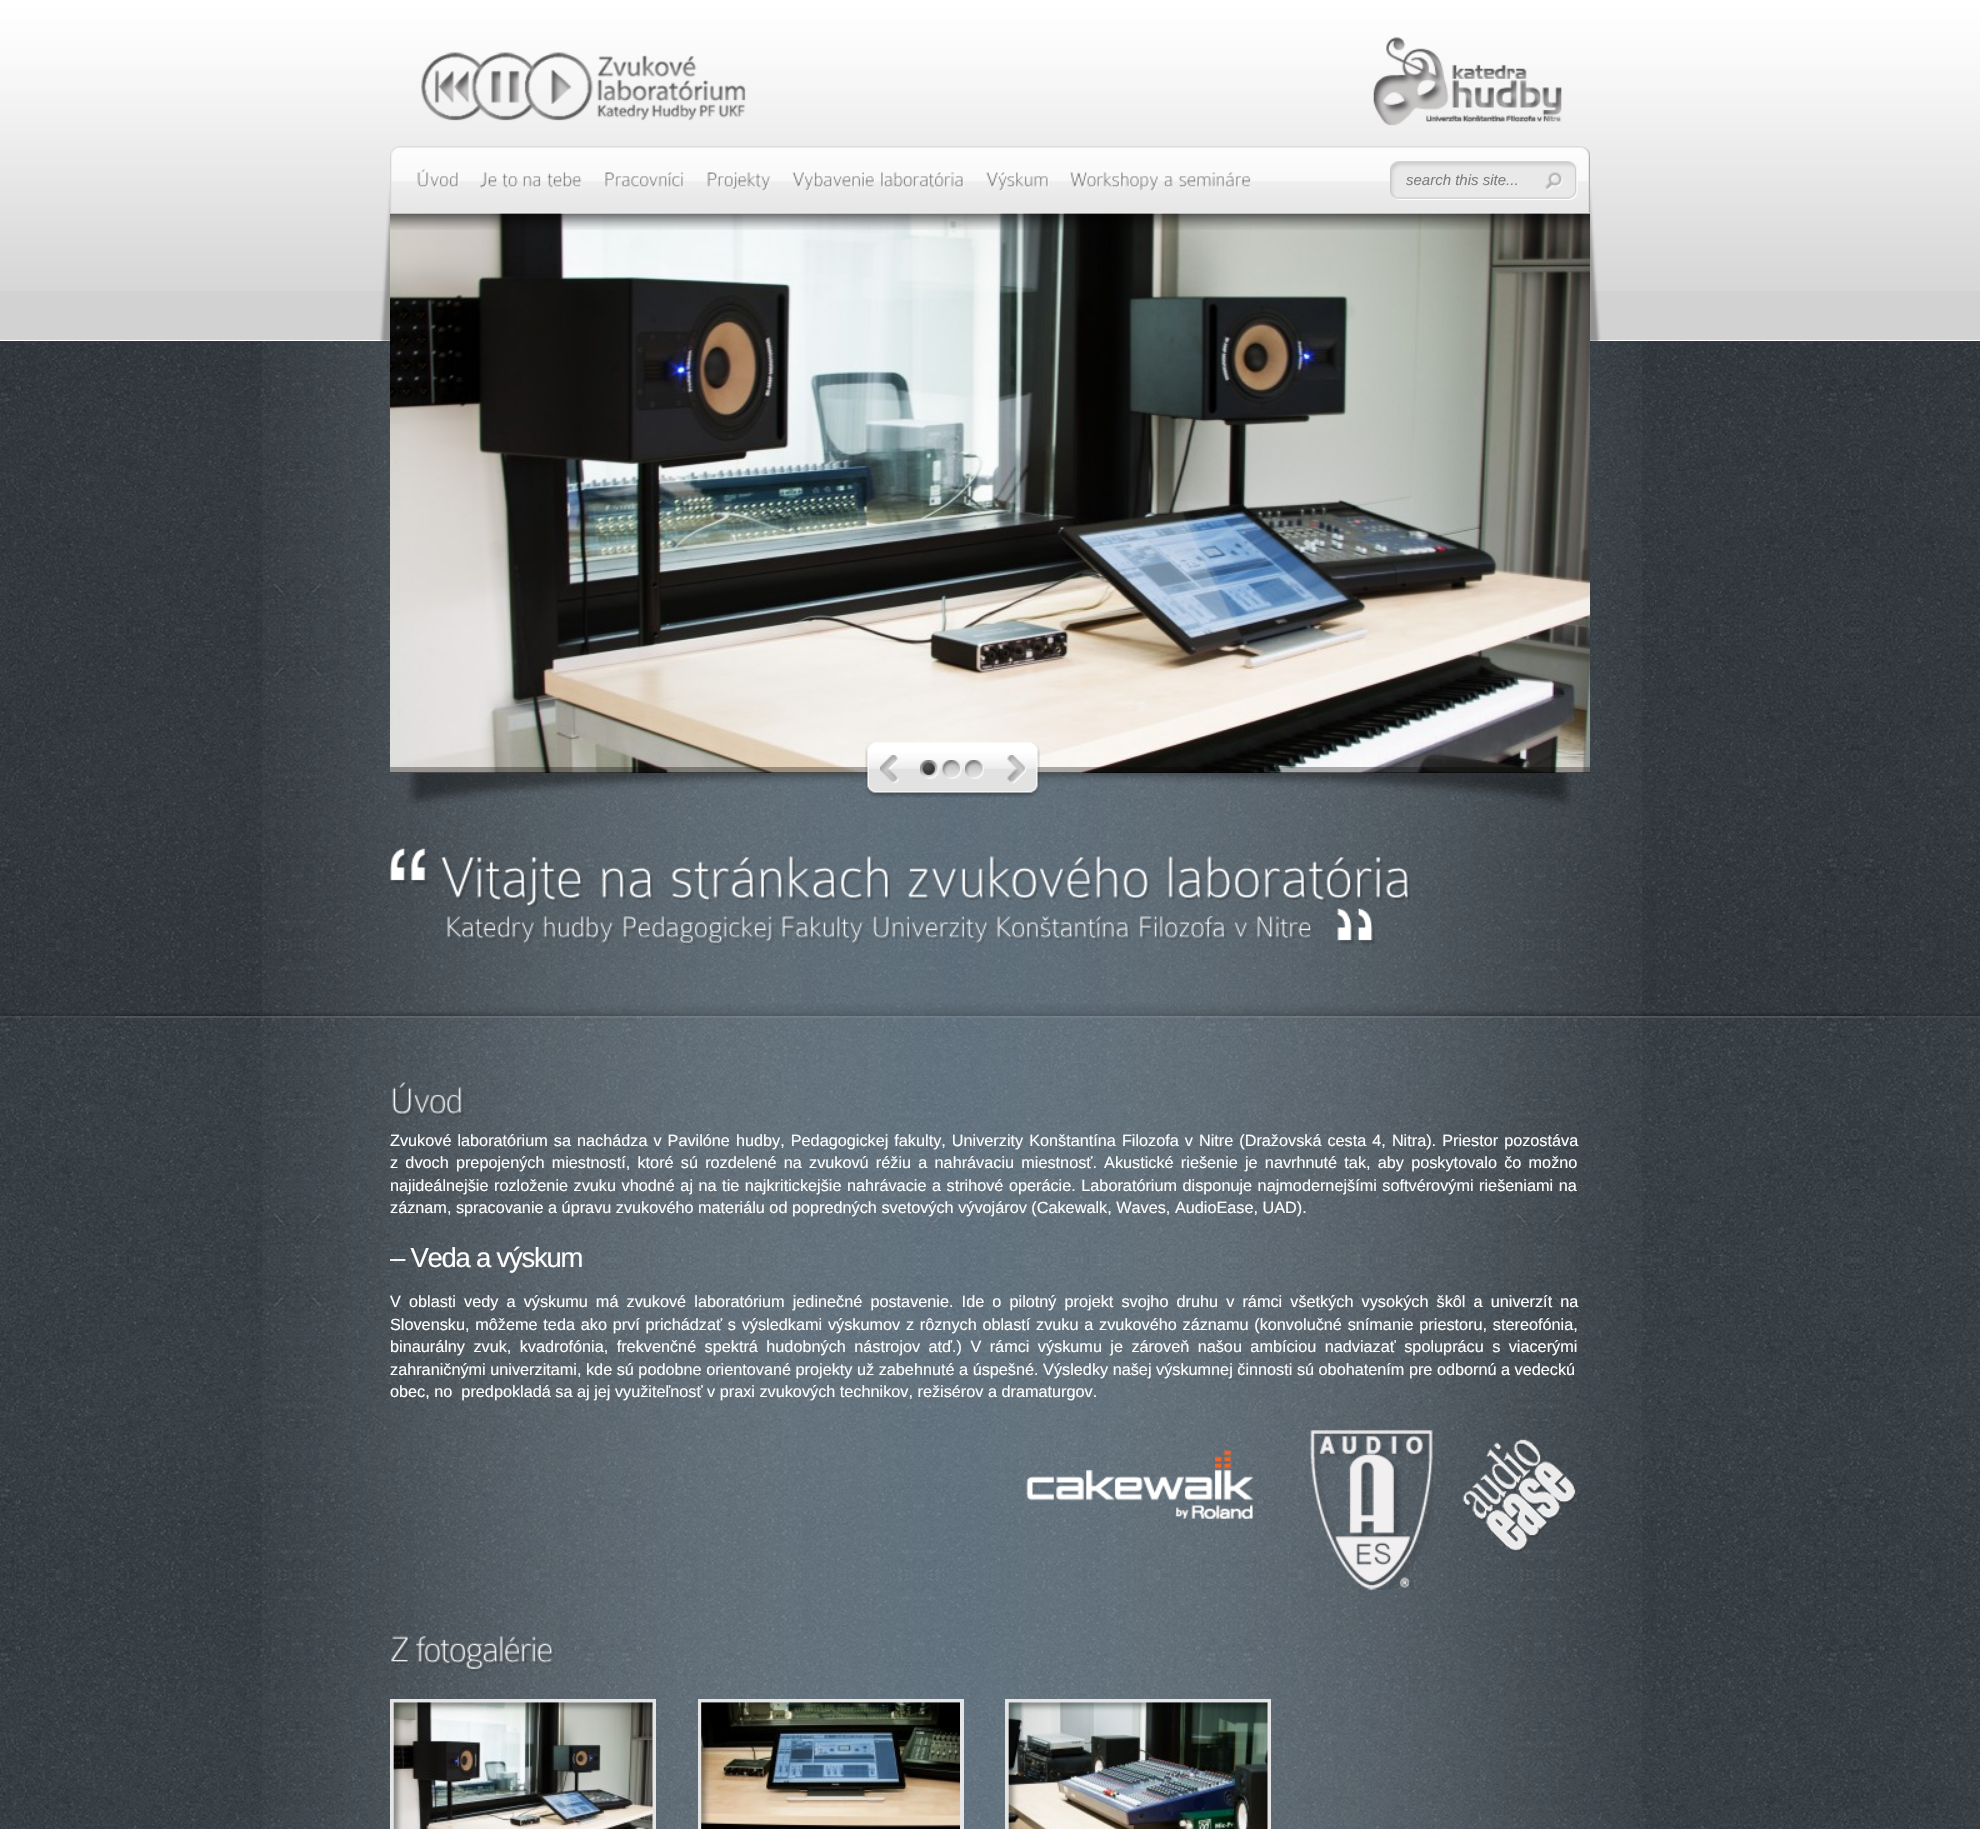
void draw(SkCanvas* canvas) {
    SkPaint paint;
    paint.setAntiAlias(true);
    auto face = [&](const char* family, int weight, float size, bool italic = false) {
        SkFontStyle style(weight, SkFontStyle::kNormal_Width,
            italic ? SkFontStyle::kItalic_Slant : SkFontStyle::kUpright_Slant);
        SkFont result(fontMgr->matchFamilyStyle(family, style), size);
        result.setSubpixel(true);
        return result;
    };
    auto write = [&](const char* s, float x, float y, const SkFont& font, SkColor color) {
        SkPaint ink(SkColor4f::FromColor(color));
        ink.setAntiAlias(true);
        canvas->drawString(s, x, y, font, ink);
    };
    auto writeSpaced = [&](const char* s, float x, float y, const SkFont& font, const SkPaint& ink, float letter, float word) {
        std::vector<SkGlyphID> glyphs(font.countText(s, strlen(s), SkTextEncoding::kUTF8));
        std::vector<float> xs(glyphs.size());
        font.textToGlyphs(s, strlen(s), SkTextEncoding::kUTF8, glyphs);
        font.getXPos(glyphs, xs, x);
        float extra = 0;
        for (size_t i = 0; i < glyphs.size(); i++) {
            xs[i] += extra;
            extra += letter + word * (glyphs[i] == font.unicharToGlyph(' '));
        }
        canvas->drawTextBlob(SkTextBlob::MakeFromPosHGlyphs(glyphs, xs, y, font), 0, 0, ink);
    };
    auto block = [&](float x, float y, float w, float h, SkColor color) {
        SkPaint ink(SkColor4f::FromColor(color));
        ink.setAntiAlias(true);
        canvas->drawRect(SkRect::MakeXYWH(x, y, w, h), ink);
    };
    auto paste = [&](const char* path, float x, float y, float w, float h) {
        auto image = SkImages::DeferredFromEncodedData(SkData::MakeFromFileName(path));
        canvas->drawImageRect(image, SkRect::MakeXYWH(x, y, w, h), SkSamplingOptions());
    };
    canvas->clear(SK_ColorWHITE);
    paste("pic1.png", 0, 341, 1980, 1488);
    paste("pic2.png", 0, 0, 1980, 213);
    paste("pic3.png", 421, 37, 1141, 89);
    paste("pic4.png", 390, 146, 1200, 67);
    paste("pic5.png", 417, 168, 42, 20);
    paste("pic6.png", 480, 172, 18, 17);
    paste("pic7.png", 502, 173, 16, 16);
    paste("pic8.png", 523, 176, 18, 12);
    paste("pic9.png", 547, 172, 35, 17);
    paste("pic10.png", 605, 172, 79, 16);
    paste("pic11.png", 707, 172, 64, 19);
    paste("pic12.png", 792, 172, 83, 19);
    paste("pic13.png", 881, 172, 83, 17);
    paste("pic14.png", 986, 172, 63, 19);
    paste("pic15.png", 1070, 172, 88, 19);
    paste("pic16.png", 1163, 176, 10, 12);
    paste("pic17.png", 1178, 172, 73, 16);
    paste("pic18.png", 1390, 161, 188, 39);
    auto kFont1 = face("Liberation Sans", 400, 15, true);
    write("search this site...", 1406, 185, kFont1, SkColorSetRGB(125, 125, 125));
    paste("pic19.png", 1545, 172, 18, 18);
    paste("pic20.png", 0, 1013, 1980, 5);
    paste("pic21.png", 115, 1003, 1750, 15);
    block(0, 341, 1980, 677, SkColorSetARGB(23, 0, 0, 0));
    paste("pic22.png", 262, 341, 1380, 677);
    paste("pic23.png", 407, 773, 1164, 33);
    block(0, 291, 1980, 49, SkColorSetRGB(210, 210, 210));
    paste("pic52.png", 0, 212, 1980, 79);
    paste("pic24.png", 379, 186, 11, 156);
    block(390, 772, 1200, 1, SK_ColorBLACK);
    paste("pic25.png", 390, 213, 1200, 560);
    paste("pic26.png", 390, 213, 1200, 17);
    block(390, 767, 1200, 6, SkColorSetARGB(82, 0, 0, 0));
    paste("pic27.png", 1590, 186, 11, 156);
    paste("pic28.png", 865, 742, 15, 56);
    paste("pic29.png", 880, 742, 150, 56);
    paste("pic30.png", 880, 755, 19, 29);
    paste("pic31.png", 920, 760, 19, 19);
    paste("pic32.png", 942, 760, 20, 19);
    paste("pic33.png", 965, 760, 19, 19);
    paste("pic34.png", 1007, 755, 20, 29);
    paste("pic35.png", 1030, 742, 10, 55);
    paste("pic36.png", 390, 848, 38, 37);
    paste("pic37.png", 441, 857, 142, 51);
    paste("pic38.png", 602, 867, 52, 33);
    paste("pic39.png", 672, 856, 218, 46);
    paste("pic40.png", 908, 856, 242, 44);
    paste("pic41.png", 1168, 856, 242, 46);
    paste("pic42.png", 1337, 908, 38, 37);
    paste("pic43.png", 447, 916, 89, 29);
    paste("pic44.png", 543, 916, 72, 29);
    paste("pic45.png", 623, 916, 151, 29);
    paste("pic46.png", 782, 916, 83, 29);
    paste("pic47.png", 873, 916, 116, 29);
    paste("pic48.png", 997, 916, 133, 24);
    paste("pic49.png", 1139, 916, 88, 24);
    paste("pic50.png", 1234, 922, 15, 17);
    paste("pic51.png", 1257, 916, 56, 25);
    paste("pic53.png", 262, 1017, 1380, 812);
    paste("pic54.png", 392, 1082, 72, 34);
    auto kFont2 = face("Liberation Sans", 400, 16.25f);
    paint.setColor(SK_ColorWHITE);
    writeSpaced("Zvukové laboratórium sa nachádza v Pavilóne hudby, Pedagogickej fakulty, Univerzity Konštantína Filozofa v Nitre (Dražovská cesta 4, Nitra). Priestor pozostáva", 390, 1146, kFont2, paint, 0, 1.5f);
    writeSpaced("z dvoch prepojených miestností, ktoré sú rozdelené na zvukovú réžiu a nahrávaciu miestnosť. Akustické riešenie je navrhnuté tak, aby poskytovalo čo možno", 390, 1168, kFont2, paint, 0, 2.7f);
    writeSpaced("najideálnejšie rozloženie zvuku vhodné aj na tie najkritickejšie nahrávacie a strihové operácie. Laboratórium disponuje najmodernejšími softvérovými riešeniami na", 390, 1191, kFont2, paint, 0, 1);
    write("záznam, spracovanie a úpravu zvukového materiálu od popredných svetových vývojárov (Cakewalk, Waves, AudioEase, UAD).", 390, 1213, kFont2, SK_ColorWHITE);
    auto kFont3 = face("Liberation Sans", 400, 27.5f);
    writeSpaced("– Veda a výskum", 390, 1267, kFont3, paint, -1.25f, 0);
    writeSpaced("V oblasti vedy a výskumu má zvukové laboratórium jedinečné postavenie. Ide o pilotný projekt svojho druhu v rámci všetkých vysokých škôl a univerzít na", 390, 1307, kFont2, paint, 0, 3.6f);
    writeSpaced("Slovensku, môžeme teda ako prví prichádzať s výsledkami výskumov z rôznych oblastí zvuku a zvukového záznamu (konvolučné snímanie priestoru, stereofónia,", 390, 1330, kFont2, paint, 0, 1.25f);
    writeSpaced("binaurálny zvuk, kvadrofónia, frekvenčné spektrá hudobných nástrojov atď.) V rámci výskumu je zároveň našou ambíciou nadviazať spoluprácu s viacerými", 390, 1352, kFont2, paint, 0, 3.9f);
    write("zahraničnými univerzitami, kde sú podobne orientované projekty už zabehnuté a úspešné. Výsledky našej výskumnej činnosti sú obohatením pre odbornú a vedeckú", 390, 1375, kFont2, SK_ColorWHITE);
    write("obec, no  predpokladá sa aj jej využiteľnosť v praxi zvukových technikov, režisérov a dramaturgov.", 390, 1397, kFont2, SK_ColorWHITE);
    paste("pic55.png", 1026, 1449, 228, 70);
    paste("pic56.png", 1310, 1429, 124, 161);
    paste("pic57.png", 1462, 1438, 115, 115);
    paste("pic58.png", 391, 1636, 19, 28);
    paste("pic59.png", 416, 1636, 138, 36);
    paint.setStyle(SkPaint::kStroke_Style);
    paint.setStrokeWidth(4);
    paint.setColor(SkColorSetRGB(229, 229, 229));
    canvas->drawRect(SkRect::MakeXYWH(392, 1701, 262, 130), paint);
    paste("pic60.png", 393, 1702, 260, 127);
    paste("pic61.png", 393, 1702, 260, 127);
    canvas->drawRect(SkRect::MakeXYWH(700, 1701, 262, 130), paint);
    paste("pic62.png", 701, 1702, 259, 127);
    paste("pic63.png", 701, 1702, 259, 127);
    canvas->drawRect(SkRect::MakeXYWH(1007, 1701, 262, 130), paint);
    paste("pic64.png", 1008, 1702, 260, 127);
    paste("pic65.png", 1008, 1702, 260, 127);
}
